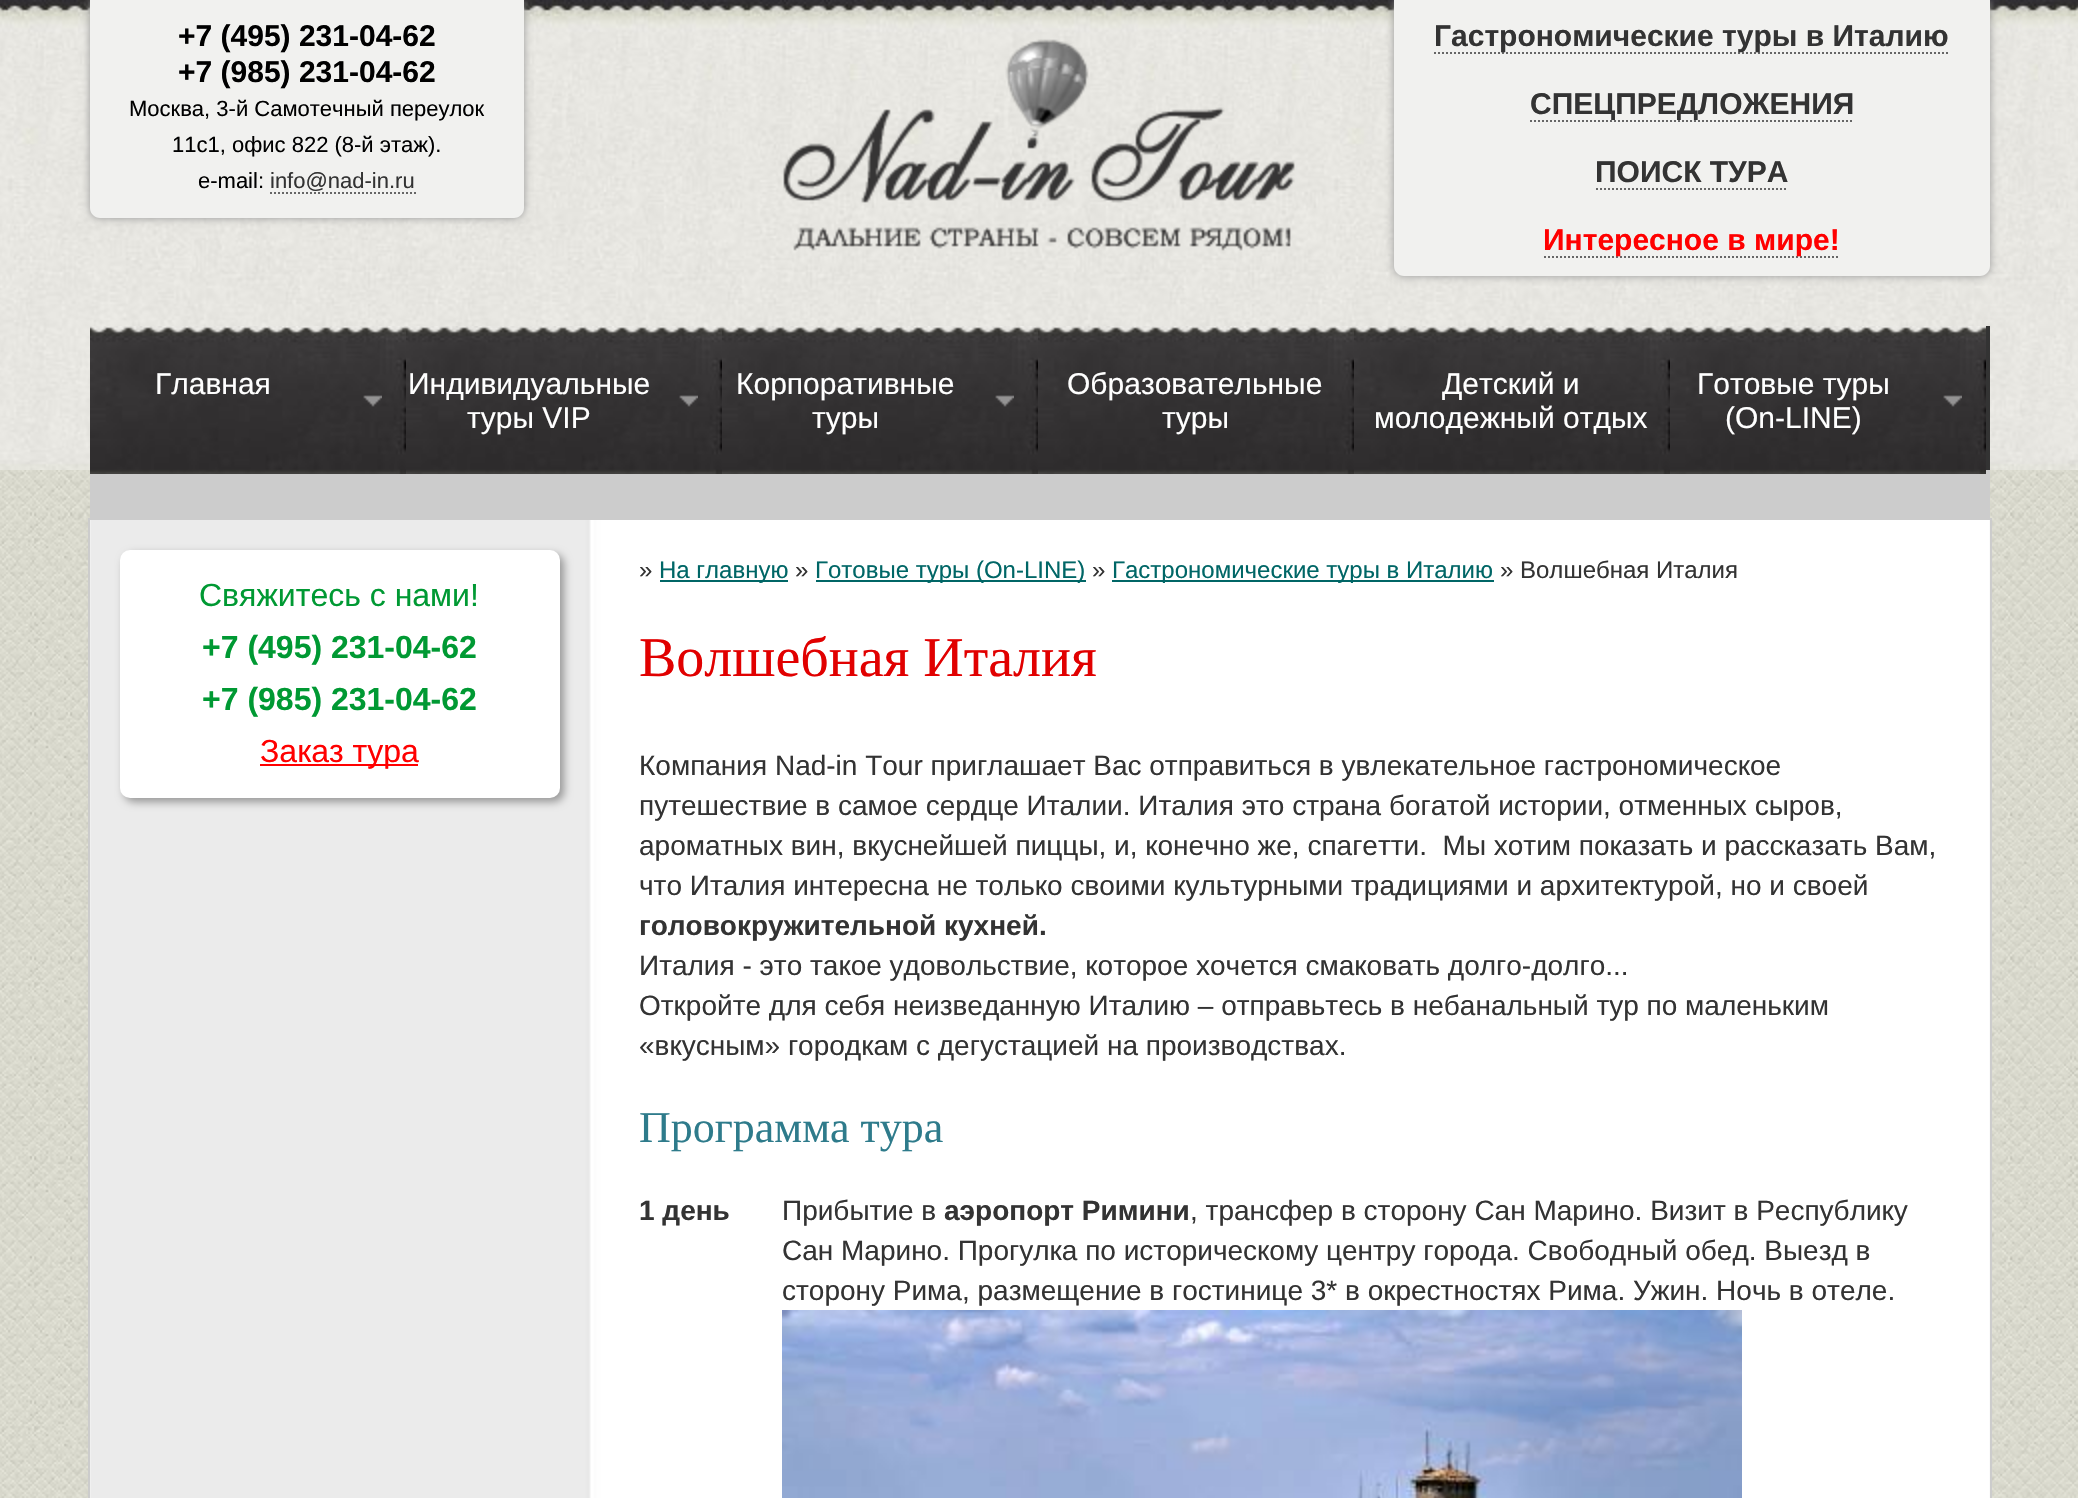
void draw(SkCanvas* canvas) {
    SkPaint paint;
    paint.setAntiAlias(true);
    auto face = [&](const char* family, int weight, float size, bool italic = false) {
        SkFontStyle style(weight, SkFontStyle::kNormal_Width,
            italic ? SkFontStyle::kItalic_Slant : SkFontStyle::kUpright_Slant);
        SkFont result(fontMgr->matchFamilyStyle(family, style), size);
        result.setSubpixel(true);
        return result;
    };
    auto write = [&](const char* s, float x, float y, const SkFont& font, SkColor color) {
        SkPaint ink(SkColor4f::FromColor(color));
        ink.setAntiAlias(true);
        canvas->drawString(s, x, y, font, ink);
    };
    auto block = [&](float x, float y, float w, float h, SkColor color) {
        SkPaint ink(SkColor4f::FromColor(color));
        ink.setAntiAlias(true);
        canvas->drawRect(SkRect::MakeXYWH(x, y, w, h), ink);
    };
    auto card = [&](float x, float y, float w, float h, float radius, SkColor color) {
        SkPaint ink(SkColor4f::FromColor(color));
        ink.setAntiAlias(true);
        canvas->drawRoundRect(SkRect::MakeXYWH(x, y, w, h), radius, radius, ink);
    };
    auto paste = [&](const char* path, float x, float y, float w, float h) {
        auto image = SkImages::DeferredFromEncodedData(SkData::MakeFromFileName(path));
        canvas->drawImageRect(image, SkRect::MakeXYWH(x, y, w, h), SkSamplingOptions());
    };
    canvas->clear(SK_ColorWHITE);
    paste("pic1.png", 0, 470, 2078, 1028);
    paste("pic2.png", 0, 0, 2078, 470);
    paint.setColor(SkColorSetRGB(150, 150, 150));
    paint.setMaskFilter(SkMaskFilter::MakeBlur(kNormal_SkBlurStyle, 4));
    canvas->drawRoundRect(SkRect::MakeXYWH(90, -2, 434, 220), 10, 10, paint);
    paint.setMaskFilter(nullptr);
    paint.setColor(SkColorSetRGB(241, 241, 239));
    canvas->drawPath(SkPathBuilder().moveTo(90, -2).lineTo(524, -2).lineTo(524, 208).cubicTo(524, 213.5f, 519.5f, 218, 514, 218).lineTo(100, 218).cubicTo(94.5f, 218, 90, 213.5f, 90, 208).close().detach(), paint);
    auto kFont1 = face("Liberation Sans", 700, 30);
    write("+7 (495) 231-04-62", 178, 46, kFont1, SK_ColorBLACK);
    write("+7 (985) 231-04-62", 178, 82, kFont1, SK_ColorBLACK);
    auto kFont2 = face("Liberation Sans", 400, 22);
    write("Москва, 3-й Самотечный переулок", 129, 116, kFont2, SK_ColorBLACK);
    write("11с1, офис 822 (8-й этаж).", 172, 152, kFont2, SK_ColorBLACK);
    write("e-mail:", 198, 188, kFont2, SK_ColorBLACK);
    write("info@nad-in.ru", 270, 188, kFont2, SkColorSetRGB(51, 51, 51));
    paint.setStyle(SkPaint::kStroke_Style);
    paint.setStrokeWidth(2);
    paint.setColor(SkColorSetRGB(102, 102, 102));
    paint.setPathEffect(SkDashPathEffect::Make({{2, 2}}, 0));
    canvas->drawPath(SkPathBuilder().moveTo(270, 193).lineTo(416, 193).detach(), paint);
    paint.setPathEffect(nullptr);
    paste("pic3.png", 783, 39, 512, 212);
    paint.setStyle(SkPaint::kFill_Style);
    paint.setColor(SkColorSetRGB(150, 150, 150));
    paint.setMaskFilter(SkMaskFilter::MakeBlur(kNormal_SkBlurStyle, 4));
    canvas->drawRoundRect(SkRect::MakeXYWH(1394, -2, 596, 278), 10, 10, paint);
    paint.setMaskFilter(nullptr);
    paint.setColor(SkColorSetRGB(241, 241, 239));
    canvas->drawPath(SkPathBuilder().moveTo(1394, -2).lineTo(1990, -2).lineTo(1990, 266).cubicTo(1990, 271.5f, 1985.5f, 276, 1980, 276).lineTo(1404, 276).cubicTo(1398.5f, 276, 1394, 271.5f, 1394, 266).close().detach(), paint);
    paint.setStyle(SkPaint::kStroke_Style);
    paint.setColor(SkColorSetRGB(102, 102, 102));
    paint.setPathEffect(SkDashPathEffect::Make({{2, 2}}, 0));
    canvas->drawPath(SkPathBuilder().moveTo(1434, 53).lineTo(1950, 53).detach(), paint);
    paint.setPathEffect(nullptr);
    write("Гастрономические туры в Италию", 1434, 46, kFont1, SkColorSetRGB(51, 51, 51));
    write("СПЕЦПРЕДЛОЖЕНИЯ", 1530, 114, kFont1, SkColorSetRGB(51, 51, 51));
    paint.setPathEffect(SkDashPathEffect::Make({{2, 2}}, 0));
    canvas->drawPath(SkPathBuilder().moveTo(1530, 121).lineTo(1854, 121).detach(), paint);
    paint.setPathEffect(nullptr);
    write("ПОИСК ТУРА", 1595, 182, kFont1, SkColorSetRGB(51, 51, 51));
    paint.setPathEffect(SkDashPathEffect::Make({{2, 2}}, 0));
    canvas->drawPath(SkPathBuilder().moveTo(1596, 189).lineTo(1788, 189).detach(), paint);
    paint.setPathEffect(nullptr);
    paint.setPathEffect(SkDashPathEffect::Make({{2, 2}}, 0));
    canvas->drawPath(SkPathBuilder().moveTo(1544, 257).lineTo(1840, 257).detach(), paint);
    paint.setPathEffect(nullptr);
    write("Интересное в мире!", 1543, 250, kFont1, SkColorSetRGB(255, 0, 0));
    block(1986, 326, 4, 144, SkColorSetRGB(51, 51, 51));
    block(90, 470, 1900, 48, SkColorSetRGB(204, 204, 204));
    paste("pic4.png", 90, 326, 316, 148);
    auto kFont3 = face("Liberation Sans", 400, 30);
    write("Главная", 155, 394, kFont3, SK_ColorWHITE);
    paste("pic5.png", 363, 395, 19, 12);
    paste("pic4.png", 406, 326, 316, 148);
    write("Индивидуальные", 408, 394, kFont3, SK_ColorWHITE);
    paste("pic5.png", 679, 395, 19, 12);
    write("туры VIP", 467, 428, kFont3, SK_ColorWHITE);
    paste("pic4.png", 722, 326, 316, 148);
    write("Корпоративные", 736, 394, kFont3, SK_ColorWHITE);
    paste("pic5.png", 995, 395, 19, 12);
    write("туры", 812, 428, kFont3, SK_ColorWHITE);
    paste("pic4.png", 1038, 326, 316, 148);
    write("Образовательные", 1067, 394, kFont3, SK_ColorWHITE);
    write("туры", 1162, 428, kFont3, SK_ColorWHITE);
    paste("pic4.png", 1354, 326, 316, 148);
    write("Детский и", 1442, 394, kFont3, SK_ColorWHITE);
    write("молодежный отдых", 1374, 428, kFont3, SK_ColorWHITE);
    paste("pic4.png", 1670, 326, 316, 148);
    write("Готовые туры", 1697, 394, kFont3, SK_ColorWHITE);
    paste("pic5.png", 1943, 395, 19, 12);
    write("(On-LINE)", 1725, 428, kFont3, SK_ColorWHITE);
    paste("pic6.png", 90, 520, 1900, 978);
    paint.setColor(SkColorSetRGB(204, 204, 204));
    canvas->drawRect(SkRect::MakeXYWH(89, 519, 1902, 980), paint);
    paint.setStyle(SkPaint::kFill_Style);
    paint.setColor(SkColorSetRGB(150, 150, 150));
    paint.setMaskFilter(SkMaskFilter::MakeBlur(kNormal_SkBlurStyle, 4));
    canvas->drawRoundRect(SkRect::MakeXYWH(124, 554, 440, 248), 10, 10, paint);
    paint.setMaskFilter(nullptr);
    card(120, 550, 440, 248, 10, SK_ColorWHITE);
    auto kFont4 = face("Liberation Sans", 400, 32);
    write("Свяжитесь с нами!", 199, 606, kFont4, SkColorSetRGB(0, 153, 51));
    auto kFont5 = face("Liberation Sans", 700, 32);
    write("+7 (495) 231-04-62", 202, 658, kFont5, SkColorSetRGB(0, 153, 51));
    write("+7 (985) 231-04-62", 202, 710, kFont5, SkColorSetRGB(0, 153, 51));
    block(260, 764, 158, 2, SkColorSetRGB(255, 0, 0));
    write("Заказ тура", 260, 762, kFont4, SkColorSetRGB(255, 0, 0));
    auto kFont6 = face("Liberation Sans", 400, 24);
    write("»", 639, 578, kFont6, SkColorSetRGB(51, 51, 51));
    block(660, 580, 128, 2, SkColorSetRGB(0, 102, 102));
    write("На главную", 659, 578, kFont6, SkColorSetRGB(0, 102, 102));
    write("»", 795, 578, kFont6, SkColorSetRGB(51, 51, 51));
    block(816, 580, 270, 2, SkColorSetRGB(0, 102, 102));
    write("Готовые туры (On-LINE)", 815, 578, kFont6, SkColorSetRGB(0, 102, 102));
    write("»", 1092, 578, kFont6, SkColorSetRGB(51, 51, 51));
    block(1112, 580, 382, 2, SkColorSetRGB(0, 102, 102));
    write("Гастрономические туры в Италию", 1112, 578, kFont6, SkColorSetRGB(0, 102, 102));
    write("» Волшебная Италия", 1500, 578, kFont6, SkColorSetRGB(51, 51, 51));
    auto kFont7 = face("Liberation Serif", 400, 56);
    write("Волшебная Италия", 639, 676, kFont7, SkColorSetRGB(225, 0, 0));
    auto kFont8 = face("Liberation Sans", 400, 28);
    write("Компания Nad-in Tour приглашает Вас отправиться в увлекательное гастрономическое", 639, 775, kFont8, SkColorSetRGB(51, 51, 51));
    write("путешествие в самое сердце Италии. Италия это страна богатой истории, отменных сыров,", 639, 815, kFont8, SkColorSetRGB(51, 51, 51));
    write("ароматных вин, вкуснейшей пиццы, и, конечно же, спагетти.  Мы хотим показать и рассказать Вам,", 639, 855, kFont8, SkColorSetRGB(51, 51, 51));
    write("что Италия интересна не только своими культурными традициями и архитектурой, но и своей", 639, 895, kFont8, SkColorSetRGB(51, 51, 51));
    auto kFont9 = face("Liberation Sans", 700, 28);
    write("головокружительной кухней.", 639, 935, kFont9, SkColorSetRGB(51, 51, 51));
    write("Италия - это такое удовольствие, которое хочется смаковать долго-долго...", 639, 975, kFont8, SkColorSetRGB(51, 51, 51));
    write("Откройте для себя неизведанную Италию – отправьтесь в небанальный тур по маленьким", 639, 1015, kFont8, SkColorSetRGB(51, 51, 51));
    write("«вкусным» городкам с дегустацией на производствах.", 639, 1055, kFont8, SkColorSetRGB(51, 51, 51));
    auto kFont10 = face("Liberation Serif", 400, 44);
    write("Программа тура", 639, 1142, kFont10, SkColorSetRGB(46, 123, 139));
    write("1 день", 639, 1220, kFont9, SkColorSetRGB(51, 51, 51));
    write("Прибытие в", 782, 1220, kFont8, SkColorSetRGB(51, 51, 51));
    write("аэропорт Римини", 944, 1220, kFont9, SkColorSetRGB(51, 51, 51));
    write(", трансфер в сторону Сан Марино. Визит в Республику", 1190, 1220, kFont8, SkColorSetRGB(51, 51, 51));
    write("Сан Марино. Прогулка по историческому центру города. Свободный обед. Выезд в", 782, 1260, kFont8, SkColorSetRGB(51, 51, 51));
    write("сторону Рима, размещение в гостинице 3* в окрестностях Рима. Ужин. Ночь в отеле.", 782, 1300, kFont8, SkColorSetRGB(51, 51, 51));
    paste("pic7.png", 782, 1310, 960, 188);
}
